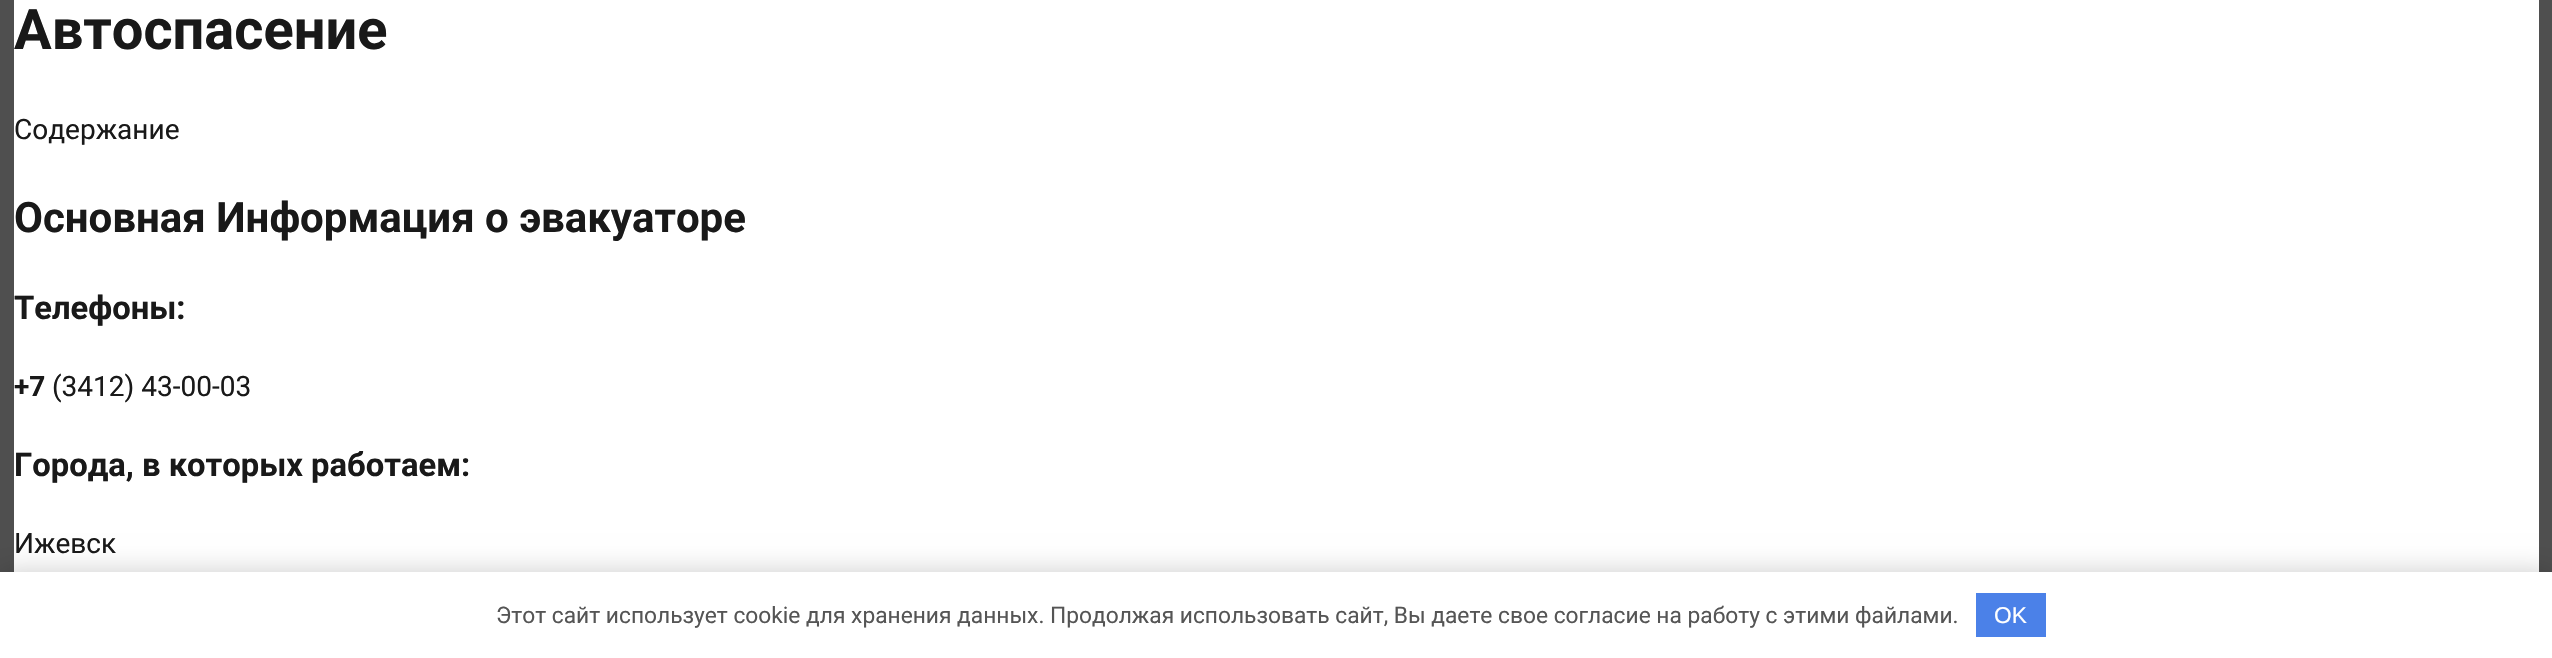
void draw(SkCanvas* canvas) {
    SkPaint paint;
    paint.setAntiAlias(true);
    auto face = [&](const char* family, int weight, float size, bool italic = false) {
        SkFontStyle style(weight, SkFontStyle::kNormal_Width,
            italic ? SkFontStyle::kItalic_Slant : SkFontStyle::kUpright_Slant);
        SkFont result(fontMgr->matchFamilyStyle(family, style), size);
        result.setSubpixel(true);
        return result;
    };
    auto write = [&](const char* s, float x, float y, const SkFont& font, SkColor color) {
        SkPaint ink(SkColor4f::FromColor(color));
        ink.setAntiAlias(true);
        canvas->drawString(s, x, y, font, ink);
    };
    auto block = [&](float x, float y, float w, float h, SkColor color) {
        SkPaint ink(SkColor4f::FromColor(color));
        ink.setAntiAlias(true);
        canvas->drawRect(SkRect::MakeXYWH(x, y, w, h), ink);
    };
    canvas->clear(SkColorSetRGB(79, 79, 79));
    block(14, 0, 2525, 572, SK_ColorWHITE);
    auto kFont1 = face("Roboto", 700, 56);
    write("Автоспасение", 14, 49, kFont1, SkColorSetRGB(25, 25, 25));
    auto kFont2 = face("Roboto", 400, 28);
    write("Содержание", 14, 139, kFont2, SkColorSetRGB(25, 25, 25));
    auto kFont3 = face("Roboto", 700, 42);
    write("Основная Информация о эвакуаторе", 14, 232, kFont3, SkColorSetRGB(25, 25, 25));
    auto kFont4 = face("Roboto", 700, 32.75f);
    write("Телефоны:", 14, 319, kFont4, SkColorSetRGB(25, 25, 25));
    auto kFont5 = face("Roboto", 700, 28);
    write("+7", 14, 396, kFont5, SkColorSetRGB(25, 25, 25));
    write("(3412) 43-00-03", 52, 396, kFont2, SkColorSetRGB(25, 25, 25));
    write("Города, в которых работаем:", 14, 476, kFont4, SkColorSetRGB(25, 25, 25));
    write("Ижевск", 14, 553, kFont2, SkColorSetRGB(25, 25, 25));
    paint.setColor(SkColorSetARGB(51, 0, 0, 0));
    paint.setMaskFilter(SkMaskFilter::MakeBlur(kNormal_SkBlurStyle, 13));
    canvas->drawRect(SkRect::MakeXYWH(0, 572, 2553, 86), paint);
    paint.setMaskFilter(nullptr);
    block(0, 572, 2552, 86, SK_ColorWHITE);
    auto kFont6 = face("Roboto", 400, 22.75f);
    write("Этот сайт использует cookie для хранения данных. Продолжая использовать сайт, Вы даете свое согласие на работу с этими файлами.", 496, 623, kFont6, SkColorSetRGB(85, 85, 85));
    block(1976, 593, 70, 44, SkColorSetRGB(75, 129, 232));
    auto kFont7 = face("Liberation Sans", 400, 22.75f);
    write("OK", 1994, 623, kFont7, SK_ColorWHITE);
}
